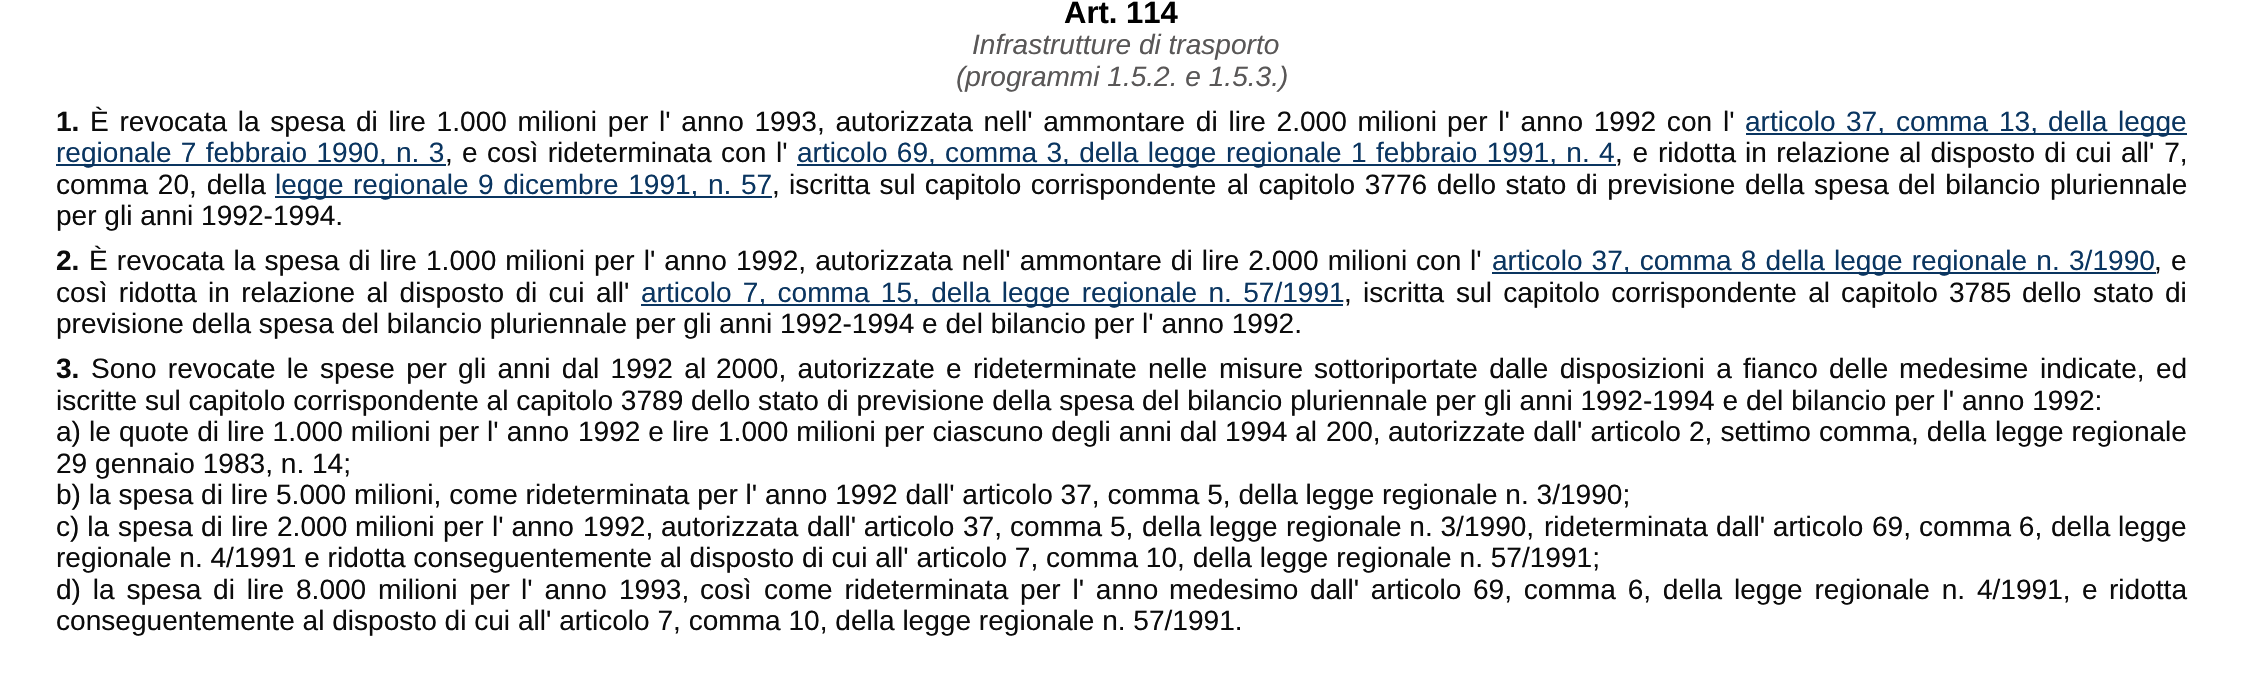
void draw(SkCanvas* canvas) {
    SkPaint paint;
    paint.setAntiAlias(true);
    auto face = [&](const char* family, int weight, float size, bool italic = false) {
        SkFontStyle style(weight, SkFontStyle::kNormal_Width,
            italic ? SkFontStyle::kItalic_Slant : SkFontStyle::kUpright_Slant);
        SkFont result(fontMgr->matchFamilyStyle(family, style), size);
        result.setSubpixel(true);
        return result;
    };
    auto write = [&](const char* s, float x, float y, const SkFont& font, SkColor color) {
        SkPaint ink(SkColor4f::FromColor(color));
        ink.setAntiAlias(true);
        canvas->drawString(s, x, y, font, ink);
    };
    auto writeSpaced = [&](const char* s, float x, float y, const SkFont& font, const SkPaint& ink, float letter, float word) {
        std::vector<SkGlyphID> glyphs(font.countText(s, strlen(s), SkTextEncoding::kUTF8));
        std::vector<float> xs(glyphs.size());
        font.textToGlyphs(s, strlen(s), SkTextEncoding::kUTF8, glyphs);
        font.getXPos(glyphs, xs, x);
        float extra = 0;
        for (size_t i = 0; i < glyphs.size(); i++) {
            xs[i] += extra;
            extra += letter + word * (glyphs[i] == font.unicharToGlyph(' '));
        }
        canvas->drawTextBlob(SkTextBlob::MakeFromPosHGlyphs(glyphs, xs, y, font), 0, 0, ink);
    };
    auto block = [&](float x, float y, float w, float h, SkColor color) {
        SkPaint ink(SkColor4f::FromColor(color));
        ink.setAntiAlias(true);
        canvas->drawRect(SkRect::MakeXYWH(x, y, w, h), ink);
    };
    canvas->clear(SK_ColorWHITE);
    auto kFont1 = face("Liberation Sans", 700, 31);
    write("Art. 114", 1064, 23, kFont1, SK_ColorBLACK);
    auto kFont2 = face("Liberation Sans", 400, 28.07f, true);
    write("Infrastrutture di trasporto", 972, 54, kFont2, SkColorSetRGB(89, 87, 87));
    write("(programmi 1.5.2. e 1.5.3.)", 956, 86, kFont2, SkColorSetRGB(89, 87, 87));
    auto kFont3 = face("Liberation Sans", 700, 28.07f);
    write("1.", 56, 131, kFont3, SkColorSetRGB(11, 11, 11));
    auto kFont4 = face("Liberation Sans", 400, 28.07f);
    paint.setColor(SkColorSetRGB(11, 11, 11));
    writeSpaced("È revocata la spesa di lire 1.000 milioni per l' anno 1993, autorizzata nell' ammontare di lire 2.000 milioni", 90, 131, kFont4, paint, 0, 2.9f);
    writeSpaced("per l' anno 1992 con", 1447, 131, kFont4, paint, 0, 2.9f);
    write("l'", 1723, 131, kFont4, SkColorSetRGB(11, 11, 11));
    write("articolo", 1745, 131, kFont4, SkColorSetRGB(10, 53, 96));
    block(1746, 133, 441, 2, SkColorSetRGB(10, 53, 96));
    write("37,", 1846, 131, kFont4, SkColorSetRGB(10, 53, 96));
    write("comma", 1896, 131, kFont4, SkColorSetRGB(10, 53, 96));
    write("13,", 1999, 131, kFont4, SkColorSetRGB(10, 53, 96));
    write("della", 2048, 131, kFont4, SkColorSetRGB(10, 53, 96));
    write("legge", 2118, 131, kFont4, SkColorSetRGB(10, 53, 96));
    block(56, 164, 390, 2, SkColorSetRGB(10, 53, 96));
    paint.setColor(SkColorSetRGB(10, 53, 96));
    writeSpaced("regionale 7 febbraio 1990, n. 3", 56, 162, kFont4, paint, 0, 1.5f);
    write(",", 445, 162, kFont4, SkColorSetRGB(11, 11, 11));
    paint.setColor(SkColorSetRGB(11, 11, 11));
    writeSpaced("e così rideterminata", 462, 162, kFont4, paint, 0, 1.5f);
    writeSpaced("con l'", 721, 162, kFont4, paint, 0, 2);
    block(797, 164, 819, 2, SkColorSetRGB(10, 53, 96));
    paint.setColor(SkColorSetRGB(10, 53, 96));
    writeSpaced("articolo 69, comma 3, della legge", 797, 162, kFont4, paint, 0, 1.5f);
    write("regionale", 1226, 162, kFont4, SkColorSetRGB(10, 53, 96));
    write("1", 1351, 162, kFont4, SkColorSetRGB(10, 53, 96));
    writeSpaced("febbraio 1991, n. 4", 1376, 162, kFont4, paint, 0, 1.5f);
    paint.setColor(SkColorSetRGB(11, 11, 11));
    writeSpaced(", e ridotta", 1615, 162, kFont4, paint, 0, 2);
    writeSpaced("in relazione al disposto di cui", 1745, 162, kFont4, paint, 0, 1.5f);
    writeSpaced("all' 7,", 2121, 162, kFont4, paint, 0, 2);
    writeSpaced("comma 20, della", 56, 194, kFont4, paint, 0, 2);
    block(275, 196, 497, 2, SkColorSetRGB(10, 53, 96));
    write("legge", 275, 194, kFont4, SkColorSetRGB(10, 53, 96));
    write("regionale", 353, 194, kFont4, SkColorSetRGB(10, 53, 96));
    paint.setColor(SkColorSetRGB(10, 53, 96));
    writeSpaced("9 dicembre 1991, n. 57", 478, 194, kFont4, paint, 0, 1.75f);
    paint.setColor(SkColorSetRGB(11, 11, 11));
    writeSpaced(", iscritta sul capitolo corrispondente", 772, 194, kFont4, paint, 0, 1.5f);
    writeSpaced("al capitolo 3776 dello stato di previsione", 1227, 194, kFont4, paint, 0, 1.75f);
    write("della", 1745, 194, kFont4, SkColorSetRGB(11, 11, 11));
    write("spesa", 1814, 194, kFont4, SkColorSetRGB(11, 11, 11));
    writeSpaced("del bilancio", 1898, 194, kFont4, paint, 0, 2);
    write("pluriennale", 2050, 194, kFont4, SkColorSetRGB(11, 11, 11));
    write("per gli anni 1992-1994.", 56, 225, kFont4, SkColorSetRGB(11, 11, 11));
    write("2.", 56, 270, kFont3, SkColorSetRGB(11, 11, 11));
    writeSpaced("È revocata la spesa di lire 1.000 milioni per l' anno 1992, autorizzata nell' ammontare di lire 2.000 milioni", 89, 270, kFont4, paint, 0, 1.3f);
    writeSpaced("con l'", 1416, 270, kFont4, paint, 0, 1);
    block(1492, 272, 664, 2, SkColorSetRGB(10, 53, 96));
    paint.setColor(SkColorSetRGB(10, 53, 96));
    writeSpaced("articolo 37, comma 8 della legge regionale n.", 1492, 270, kFont4, paint, 0, 1.3f);
    write("3/1990", 2069, 270, kFont4, SkColorSetRGB(10, 53, 96));
    write(",", 2154, 270, kFont4, SkColorSetRGB(11, 11, 11));
    write("e", 2171, 270, kFont4, SkColorSetRGB(11, 11, 11));
    paint.setColor(SkColorSetRGB(11, 11, 11));
    writeSpaced("così ridotta in relazione al disposto di cui", 56, 302, kFont4, paint, 0, 3.5f);
    write("all'", 596, 302, kFont4, SkColorSetRGB(11, 11, 11));
    block(641, 304, 702, 2, SkColorSetRGB(10, 53, 96));
    paint.setColor(SkColorSetRGB(10, 53, 96));
    writeSpaced("articolo 7, comma 15, della legge regionale n. 57/1991", 641, 302, kFont4, paint, 0, 3.5f);
    paint.setColor(SkColorSetRGB(11, 11, 11));
    writeSpaced(", iscritta", 1344, 302, kFont4, paint, 0, 3.5f);
    writeSpaced("sul capitolo corrispondente al", 1456, 302, kFont4, paint, 0, 3.5f);
    write("capitolo", 1841, 302, kFont4, SkColorSetRGB(11, 11, 11));
    write("3785", 1949, 302, kFont4, SkColorSetRGB(11, 11, 11));
    write("dello", 2022, 302, kFont4, SkColorSetRGB(11, 11, 11));
    write("stato", 2093, 302, kFont4, SkColorSetRGB(11, 11, 11));
    write("di", 2165, 302, kFont4, SkColorSetRGB(11, 11, 11));
    write("previsione della spesa del bilancio pluriennale per gli anni 1992-1994 e del bilancio per l' anno 1992.", 56, 333, kFont4, SkColorSetRGB(11, 11, 11));
    write("3.", 56, 378, kFont3, SkColorSetRGB(11, 11, 11));
    writeSpaced("Sono revocate le spese per gli anni dal 1992 al", 91, 378, kFont4, paint, 0, 3.5f);
    writeSpaced("2000, autorizzate", 716, 378, kFont4, paint, 0, 3.5f);
    write("e", 946, 378, kFont4, SkColorSetRGB(11, 11, 11));
    write("rideterminate", 973, 378, kFont4, SkColorSetRGB(11, 11, 11));
    write("nelle", 1148, 378, kFont4, SkColorSetRGB(11, 11, 11));
    write("misure", 1219, 378, kFont4, SkColorSetRGB(11, 11, 11));
    writeSpaced("sottoriportate dalle disposizioni a", 1314, 378, kFont4, paint, 0, 3.5f);
    write("fianco", 1743, 378, kFont4, SkColorSetRGB(11, 11, 11));
    write("delle", 1829, 378, kFont4, SkColorSetRGB(11, 11, 11));
    write("medesime", 1899, 378, kFont4, SkColorSetRGB(11, 11, 11));
    write("indicate,", 2040, 378, kFont4, SkColorSetRGB(11, 11, 11));
    write("ed", 2156, 378, kFont4, SkColorSetRGB(11, 11, 11));
    write("iscritte sul capitolo corrispondente al capitolo 3789", 56, 410, kFont4, SkColorSetRGB(11, 11, 11));
    write("dello stato di previsione della spesa del bilancio pluriennale per gli anni 1992-1994 e del bilancio per l' anno 1992:", 691, 410, kFont4, SkColorSetRGB(11, 11, 11));
    writeSpaced("a) le quote di lire 1.000 milioni per l' anno", 56, 441, kFont4, paint, 0, 0.25f);
    write("1992 e", 578, 441, kFont4, SkColorSetRGB(11, 11, 11));
    write("lire", 672, 441, kFont4, SkColorSetRGB(11, 11, 11));
    writeSpaced("1.000 milioni per ciascuno degli anni dal", 718, 441, kFont4, paint, 0, 0.25f);
    write("1994 al", 1225, 441, kFont4, SkColorSetRGB(11, 11, 11));
    write("200,", 1326, 441, kFont4, SkColorSetRGB(11, 11, 11));
    writeSpaced("autorizzate dall' articolo 2, settimo comma, della", 1388, 441, kFont4, paint, 0, 0.25f);
    write("legge regionale", 1995, 441, kFont4, SkColorSetRGB(11, 11, 11));
    write("29 gennaio 1983, n. 14;", 56, 473, kFont4, SkColorSetRGB(11, 11, 11));
    write("b) la spesa di lire 5.000 milioni, come rideterminata per l' anno 1992 dall' articolo 37, comma 5, della legge regionale n. 3/1990;", 56, 504, kFont4, SkColorSetRGB(11, 11, 11));
    write("c) la", 56, 536, kFont4, SkColorSetRGB(11, 11, 11));
    write("spesa", 118, 536, kFont4, SkColorSetRGB(11, 11, 11));
    write("di", 201, 536, kFont4, SkColorSetRGB(11, 11, 11));
    write("lire", 231, 536, kFont4, SkColorSetRGB(11, 11, 11));
    write("2.000", 277, 536, kFont4, SkColorSetRGB(11, 11, 11));
    write("milioni", 355, 536, kFont4, SkColorSetRGB(11, 11, 11));
    write("per", 443, 536, kFont4, SkColorSetRGB(11, 11, 11));
    write("l' anno", 492, 536, kFont4, SkColorSetRGB(11, 11, 11));
    write("1992,", 583, 536, kFont4, SkColorSetRGB(11, 11, 11));
    write("autorizzata", 661, 536, kFont4, SkColorSetRGB(11, 11, 11));
    write("dall' articolo", 807, 536, kFont4, SkColorSetRGB(11, 11, 11));
    write("37,", 963, 536, kFont4, SkColorSetRGB(11, 11, 11));
    write("comma", 1010, 536, kFont4, SkColorSetRGB(11, 11, 11));
    write("5,", 1110, 536, kFont4, SkColorSetRGB(11, 11, 11));
    write("della", 1142, 536, kFont4, SkColorSetRGB(11, 11, 11));
    write("legge", 1209, 536, kFont4, SkColorSetRGB(11, 11, 11));
    write("regionale n. 3/1990,", 1286, 536, kFont4, SkColorSetRGB(11, 11, 11));
    write("rideterminata", 1544, 536, kFont4, SkColorSetRGB(11, 11, 11));
    write("dall' articolo", 1716, 536, kFont4, SkColorSetRGB(11, 11, 11));
    write("69,", 1872, 536, kFont4, SkColorSetRGB(11, 11, 11));
    write("comma 6,", 1919, 536, kFont4, SkColorSetRGB(11, 11, 11));
    write("della", 2051, 536, kFont4, SkColorSetRGB(11, 11, 11));
    write("legge", 2118, 536, kFont4, SkColorSetRGB(11, 11, 11));
    write("regionale n. 4/1991 e ridotta conseguentemente al disposto di cui all' articolo 7, comma 10, della legge regionale n. 57/1991;", 56, 567, kFont4, SkColorSetRGB(11, 11, 11));
    writeSpaced("d) la spesa di lire 8.000 milioni per", 56, 599, kFont4, paint, 0, 4);
    writeSpaced("l' anno", 521, 599, kFont4, paint, 0, 4);
    write("1993,", 619, 599, kFont4, SkColorSetRGB(11, 11, 11));
    write("così", 700, 599, kFont4, SkColorSetRGB(11, 11, 11));
    writeSpaced("come rideterminata per l' anno", 764, 599, kFont4, paint, 0, 4);
    write("medesimo", 1169, 599, kFont4, SkColorSetRGB(11, 11, 11));
    writeSpaced("dall' articolo", 1310, 599, kFont4, paint, 0, 4);
    writeSpaced("69, comma 6, della legge regionale n. 4/1991,", 1473, 599, kFont4, paint, 0, 4);
    write("e", 2082, 599, kFont4, SkColorSetRGB(11, 11, 11));
    write("ridotta", 2109, 599, kFont4, SkColorSetRGB(11, 11, 11));
    write("conseguentemente al disposto di cui all' articolo 7, comma 10, della legge regionale n. 57/1991.", 56, 630, kFont4, SkColorSetRGB(11, 11, 11));
}
